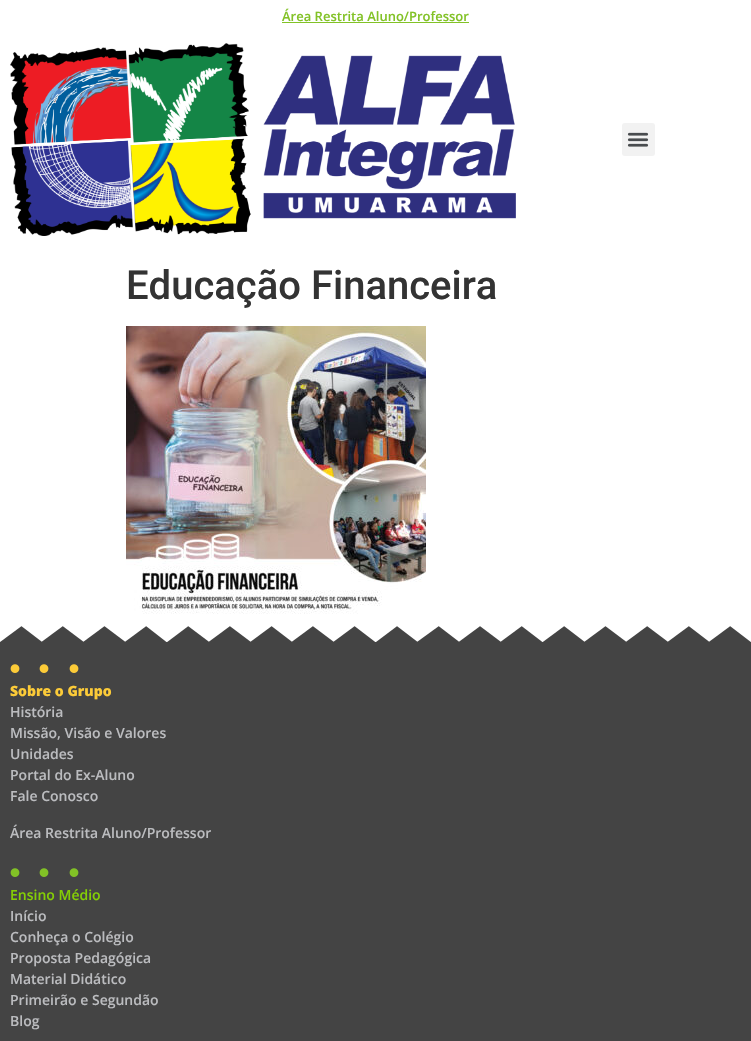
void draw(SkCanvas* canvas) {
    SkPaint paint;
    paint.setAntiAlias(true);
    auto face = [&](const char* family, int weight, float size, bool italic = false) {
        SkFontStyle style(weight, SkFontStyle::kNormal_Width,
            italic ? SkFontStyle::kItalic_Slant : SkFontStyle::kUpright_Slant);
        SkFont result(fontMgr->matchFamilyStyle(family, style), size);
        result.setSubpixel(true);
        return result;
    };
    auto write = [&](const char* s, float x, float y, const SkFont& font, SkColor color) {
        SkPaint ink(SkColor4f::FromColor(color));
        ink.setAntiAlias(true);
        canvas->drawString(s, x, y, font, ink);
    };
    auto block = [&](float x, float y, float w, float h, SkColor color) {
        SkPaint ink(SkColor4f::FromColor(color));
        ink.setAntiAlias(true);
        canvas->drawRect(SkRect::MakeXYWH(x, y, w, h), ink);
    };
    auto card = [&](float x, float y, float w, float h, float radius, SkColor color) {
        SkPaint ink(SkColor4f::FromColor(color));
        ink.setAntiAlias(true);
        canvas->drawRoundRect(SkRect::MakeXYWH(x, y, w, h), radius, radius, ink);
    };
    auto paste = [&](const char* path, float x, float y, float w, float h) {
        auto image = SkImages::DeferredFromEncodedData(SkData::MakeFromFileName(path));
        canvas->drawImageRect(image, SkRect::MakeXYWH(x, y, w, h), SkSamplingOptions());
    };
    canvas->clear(SK_ColorWHITE);
    auto kFont1 = face("Open Sans", 600, 13);
    write("Área Restrita Aluno/Professor", 282, 21, kFont1, SkColorSetRGB(130, 194, 38));
    block(282, 22, 187, 1, SkColorSetRGB(130, 194, 38));
    paste("pic1.png", 10, 43, 506, 193);
    card(622, 123, 33, 33, 3, SkColorSetRGB(242, 242, 242));
    paste("pic2.png", 627, 132, 22, 15);
    auto kFont2 = face("Roboto", 500, 40);
    write("Educação Financeira", 126, 299, kFont2, SkColorSetRGB(51, 51, 51));
    paste("pic3.png", 126, 326, 300, 288);
    block(0, 626, 751, 415, SkColorSetRGB(68, 68, 68));
    paste("pic4.png", 0, 626, 751, 16);
    paste("pic5.png", 10, 664, 10, 9);
    paste("pic5.png", 39, 664, 10, 9);
    paste("pic5.png", 69, 664, 10, 9);
    auto kFont3 = face("Open Sans", 800, 14);
    write("Sobre o Grupo", 10, 696, kFont3, SkColorSetRGB(252, 203, 56));
    auto kFont4 = face("Open Sans", 600, 14);
    write("História", 10, 717, kFont4, SkColorSetRGB(187, 188, 191));
    write("Missão, Visão e Valores", 10, 738, kFont4, SkColorSetRGB(187, 188, 191));
    write("Unidades", 10, 759, kFont4, SkColorSetRGB(187, 188, 191));
    write("Portal do Ex-Aluno", 10, 780, kFont4, SkColorSetRGB(187, 188, 191));
    write("Fale Conosco", 10, 801, kFont4, SkColorSetRGB(187, 188, 191));
    write("Área Restrita Aluno/Professor", 10, 838, kFont4, SkColorSetRGB(187, 188, 191));
    paste("pic6.png", 10, 868, 10, 9);
    paste("pic6.png", 39, 868, 10, 9);
    paste("pic6.png", 69, 868, 10, 9);
    write("Ensino Médio", 10, 900, kFont4, SkColorSetRGB(132, 206, 5));
    write("Início", 10, 921, kFont4, SkColorSetRGB(187, 188, 191));
    write("Conheça o Colégio", 10, 942, kFont4, SkColorSetRGB(187, 188, 191));
    write("Proposta Pedagógica", 10, 963, kFont4, SkColorSetRGB(187, 188, 191));
    write("Material Didático", 10, 984, kFont4, SkColorSetRGB(187, 188, 191));
    write("Primeirão e Segundão", 10, 1005, kFont4, SkColorSetRGB(187, 188, 191));
    write("Blog", 10, 1026, kFont4, SkColorSetRGB(187, 188, 191));
}
